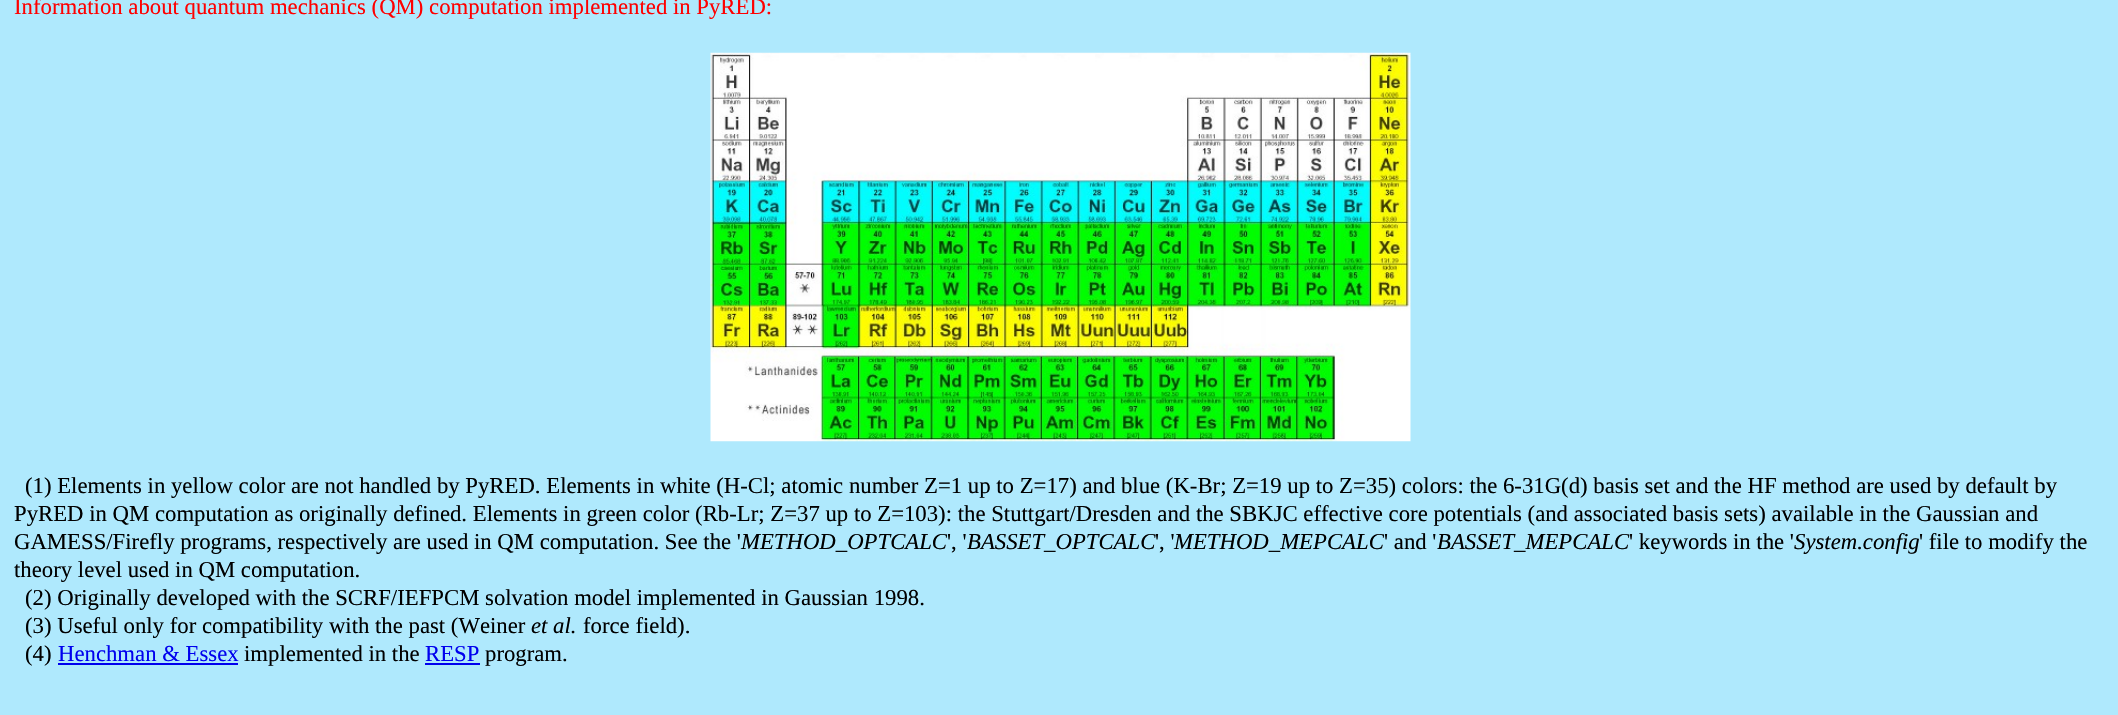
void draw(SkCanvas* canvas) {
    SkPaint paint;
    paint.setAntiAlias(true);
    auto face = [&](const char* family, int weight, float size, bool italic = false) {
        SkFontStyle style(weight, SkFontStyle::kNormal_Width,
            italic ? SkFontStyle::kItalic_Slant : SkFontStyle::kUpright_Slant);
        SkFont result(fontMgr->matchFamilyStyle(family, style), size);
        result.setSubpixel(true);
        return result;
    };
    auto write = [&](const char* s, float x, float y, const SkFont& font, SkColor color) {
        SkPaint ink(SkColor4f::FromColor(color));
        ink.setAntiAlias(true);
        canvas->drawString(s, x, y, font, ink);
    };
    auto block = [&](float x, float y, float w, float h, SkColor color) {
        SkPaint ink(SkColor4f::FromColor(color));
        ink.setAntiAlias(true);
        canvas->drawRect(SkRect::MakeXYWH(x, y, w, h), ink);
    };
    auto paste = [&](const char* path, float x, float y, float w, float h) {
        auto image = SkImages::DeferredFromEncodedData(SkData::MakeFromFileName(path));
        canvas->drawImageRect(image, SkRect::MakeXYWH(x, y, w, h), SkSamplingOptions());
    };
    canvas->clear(SkColorSetRGB(175, 233, 253));
    auto kFont1 = face("Liberation Serif", 400, 22.75f);
    write("Information about quantum mechanics (QM) computation implemented in PyRED:", 14, 14, kFont1, SkColorSetRGB(255, 0, 0));
    paste("pic1.png", 710, 52, 701, 390);
    write("(1) Elements in yellow color are not handled by PyRED. Elements in white (H-Cl; atomic number Z=1 up to Z=17) and blue (K-Br; Z=19 up to Z=35) colors: the 6-31G(d) basis set and the HF method are used by default by", 25, 493, kFont1, SK_ColorBLACK);
    write("PyRED in QM computation as originally defined. Elements in green color (Rb-Lr; Z=37 up to Z=103): the Stuttgart/Dresden and the SBKJC effective core potentials (and associated basis sets) available in the Gaussian and", 14, 521, kFont1, SK_ColorBLACK);
    write("GAMESS/Firefly programs, respectively are used in QM computation. See the '", 14, 549, kFont1, SK_ColorBLACK);
    auto kFont2 = face("Liberation Serif", 400, 22.75f, true);
    write("METHOD_OPTCALC", 741, 549, kFont2, SK_ColorBLACK);
    write("', '", 947, 549, kFont1, SK_ColorBLACK);
    write("BASSET_OPTCALC", 967, 549, kFont2, SK_ColorBLACK);
    write("', '", 1155, 549, kFont1, SK_ColorBLACK);
    write("METHOD_MEPCALC", 1174, 549, kFont2, SK_ColorBLACK);
    write("' and '", 1384, 549, kFont1, SK_ColorBLACK);
    write("BASSET_MEPCALC", 1437, 549, kFont2, SK_ColorBLACK);
    write("' keywords in the '", 1629, 549, kFont1, SK_ColorBLACK);
    write("System.config", 1794, 549, kFont2, SK_ColorBLACK);
    write("' file to modify the", 1919, 549, kFont1, SK_ColorBLACK);
    write("theory level used in QM computation.", 14, 577, kFont1, SK_ColorBLACK);
    write("(2) Originally developed with the SCRF/IEFPCM solvation model implemented in Gaussian 1998.", 25, 605, kFont1, SK_ColorBLACK);
    write("(3) Useful only for compatibility with the past (Weiner", 25, 633, kFont1, SK_ColorBLACK);
    write("et al.", 531, 633, kFont2, SK_ColorBLACK);
    write("force field).", 583, 633, kFont1, SK_ColorBLACK);
    write("(4)", 25, 661, kFont1, SK_ColorBLACK);
    write("Henchman & Essex", 58, 661, kFont1, SkColorSetRGB(0, 0, 238));
    block(58, 663, 180, 2, SkColorSetRGB(0, 0, 238));
    write("implemented in the", 244, 661, kFont1, SK_ColorBLACK);
    write("RESP", 425, 661, kFont1, SkColorSetRGB(0, 0, 238));
    write("program.", 485, 661, kFont1, SK_ColorBLACK);
    block(425, 663, 55, 2, SkColorSetRGB(0, 0, 238));
}
